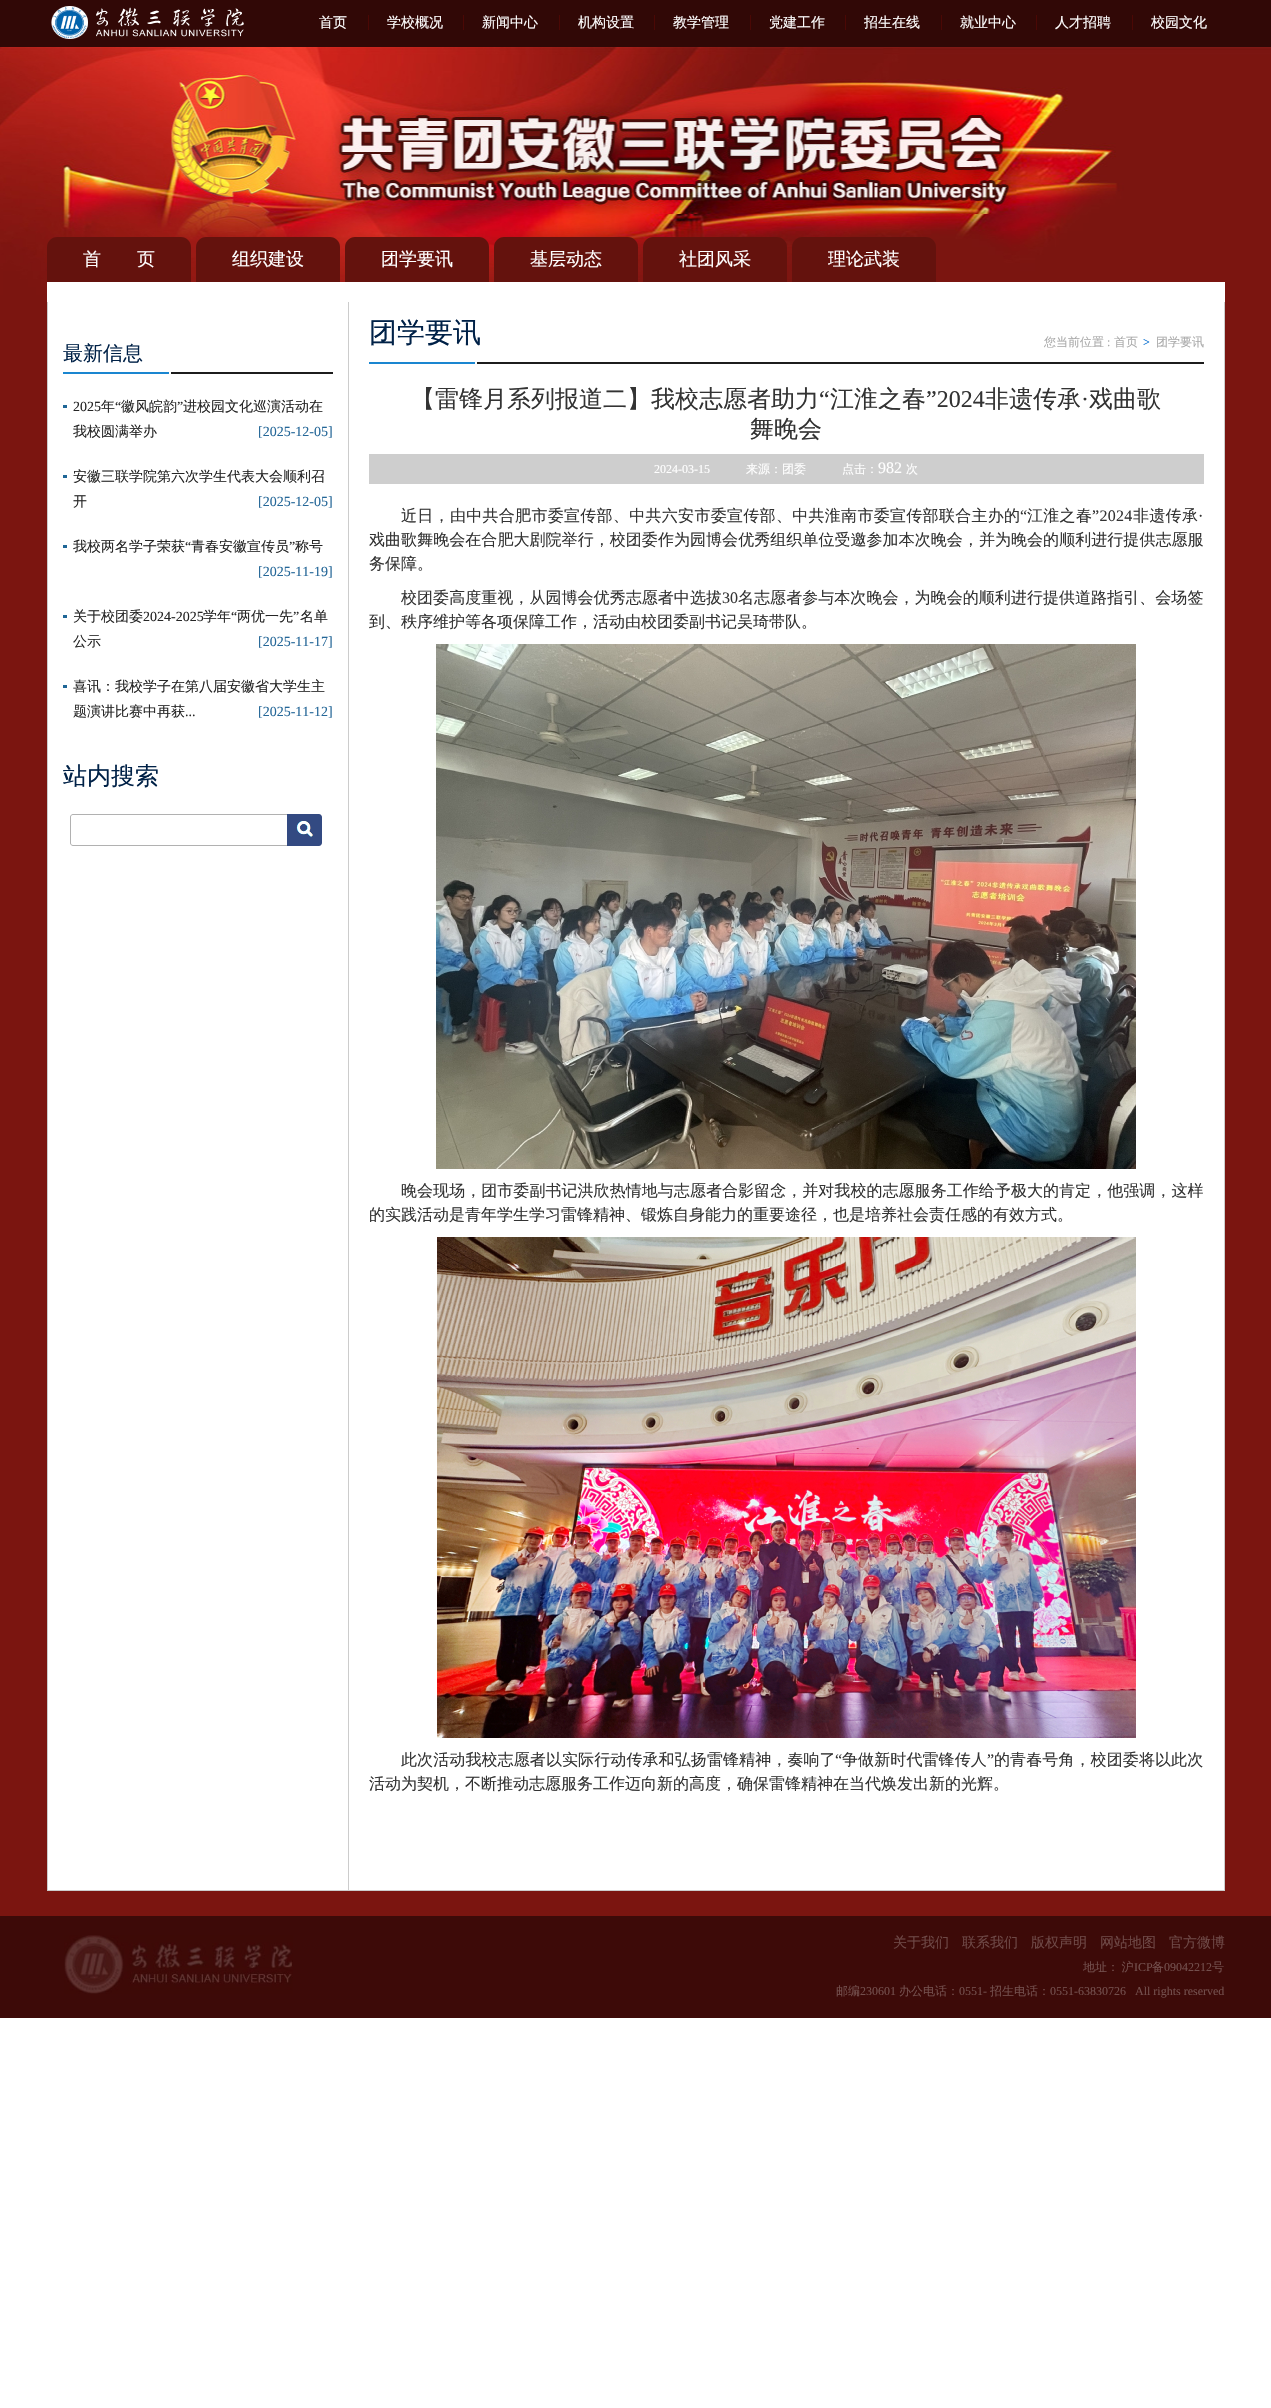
void draw(SkCanvas* canvas) {
    SkPaint paint;
    paint.setAntiAlias(true);
    auto face = [&](const char* family, int weight, float size, bool italic = false) {
        SkFontStyle style(weight, SkFontStyle::kNormal_Width,
            italic ? SkFontStyle::kItalic_Slant : SkFontStyle::kUpright_Slant);
        SkFont result(fontMgr->matchFamilyStyle(family, style), size);
        result.setSubpixel(true);
        return result;
    };
    auto write = [&](const char* s, float x, float y, const SkFont& font, SkColor color) {
        SkPaint ink(SkColor4f::FromColor(color));
        ink.setAntiAlias(true);
        canvas->drawString(s, x, y, font, ink);
    };
    auto writeSpaced = [&](const char* s, float x, float y, const SkFont& font, const SkPaint& ink, float letter, float word) {
        std::vector<SkGlyphID> glyphs(font.countText(s, strlen(s), SkTextEncoding::kUTF8));
        std::vector<float> xs(glyphs.size());
        font.textToGlyphs(s, strlen(s), SkTextEncoding::kUTF8, glyphs);
        font.getXPos(glyphs, xs, x);
        float extra = 0;
        for (size_t i = 0; i < glyphs.size(); i++) {
            xs[i] += extra;
            extra += letter + word * (glyphs[i] == font.unicharToGlyph(' '));
        }
        canvas->drawTextBlob(SkTextBlob::MakeFromPosHGlyphs(glyphs, xs, y, font), 0, 0, ink);
    };
    auto block = [&](float x, float y, float w, float h, SkColor color) {
        SkPaint ink(SkColor4f::FromColor(color));
        ink.setAntiAlias(true);
        canvas->drawRect(SkRect::MakeXYWH(x, y, w, h), ink);
    };
    auto paste = [&](const char* path, float x, float y, float w, float h) {
        auto image = SkImages::DeferredFromEncodedData(SkData::MakeFromFileName(path));
        canvas->drawImageRect(image, SkRect::MakeXYWH(x, y, w, h), SkSamplingOptions());
    };
    canvas->clear(SK_ColorWHITE);
    block(0, 362, 1271, 1554, SkColorSetRGB(123, 21, 16));
    paste("pic1.png", 0, 47, 1271, 315);
    block(0, 0, 1271, 47, SkColorSetRGB(49, 8, 6));
    paste("pic2.png", 51, 6, 193, 33);
    auto kFont1 = face("WenQuanYi Zen Hei", 500, 14);
    write("首页", 319, 27, kFont1, SK_ColorWHITE);
    write("学校概况", 387, 27, kFont1, SK_ColorWHITE);
    block(368, 15, 1, 15, SkColorSetRGB(75, 8, 5));
    write("新闻中心", 482, 27, kFont1, SK_ColorWHITE);
    block(463, 15, 1, 15, SkColorSetRGB(75, 8, 5));
    write("机构设置", 578, 27, kFont1, SK_ColorWHITE);
    block(559, 15, 1, 15, SkColorSetRGB(75, 8, 5));
    write("教学管理", 673, 27, kFont1, SK_ColorWHITE);
    block(654, 15, 1, 15, SkColorSetRGB(75, 8, 5));
    write("党建工作", 769, 27, kFont1, SK_ColorWHITE);
    block(750, 15, 1, 15, SkColorSetRGB(75, 8, 5));
    write("招生在线", 864, 27, kFont1, SK_ColorWHITE);
    block(845, 15, 1, 15, SkColorSetRGB(75, 8, 5));
    write("就业中心", 960, 27, kFont1, SK_ColorWHITE);
    block(941, 15, 1, 15, SkColorSetRGB(75, 8, 5));
    write("人才招聘", 1055, 27, kFont1, SK_ColorWHITE);
    block(1036, 15, 1, 15, SkColorSetRGB(75, 8, 5));
    write("校园文化", 1151, 27, kFont1, SK_ColorWHITE);
    block(1132, 15, 1, 15, SkColorSetRGB(75, 8, 5));
    paint.setColor(SkColorSetRGB(100, 18, 13));
    canvas->drawPath(SkPathBuilder().moveTo(57, 237).lineTo(181, 237).cubicTo(186.5f, 237, 191, 241.5f, 191, 247).lineTo(191, 282).lineTo(47, 282).lineTo(47, 247).cubicTo(47, 241.5f, 51.5f, 237, 57, 237).close().detach(), paint);
    auto kFont2 = face("WenQuanYi Zen Hei", 500, 18);
    write("首　　页", 83, 265, kFont2, SK_ColorWHITE);
    canvas->drawPath(SkPathBuilder().moveTo(206, 237).lineTo(330, 237).cubicTo(335.5f, 237, 340, 241.5f, 340, 247).lineTo(340, 282).lineTo(196, 282).lineTo(196, 247).cubicTo(196, 241.5f, 200.5f, 237, 206, 237).close().detach(), paint);
    write("组织建设", 232, 265, kFont2, SK_ColorWHITE);
    canvas->drawPath(SkPathBuilder().moveTo(355, 237).lineTo(479, 237).cubicTo(484.5f, 237, 489, 241.5f, 489, 247).lineTo(489, 282).lineTo(345, 282).lineTo(345, 247).cubicTo(345, 241.5f, 349.5f, 237, 355, 237).close().detach(), paint);
    write("团学要讯", 381, 265, kFont2, SK_ColorWHITE);
    canvas->drawPath(SkPathBuilder().moveTo(504, 237).lineTo(628, 237).cubicTo(633.5f, 237, 638, 241.5f, 638, 247).lineTo(638, 282).lineTo(494, 282).lineTo(494, 247).cubicTo(494, 241.5f, 498.5f, 237, 504, 237).close().detach(), paint);
    write("基层动态", 530, 265, kFont2, SK_ColorWHITE);
    canvas->drawPath(SkPathBuilder().moveTo(653, 237).lineTo(777, 237).cubicTo(782.5f, 237, 787, 241.5f, 787, 247).lineTo(787, 282).lineTo(643, 282).lineTo(643, 247).cubicTo(643, 241.5f, 647.5f, 237, 653, 237).close().detach(), paint);
    write("社团风采", 679, 265, kFont2, SK_ColorWHITE);
    canvas->drawPath(SkPathBuilder().moveTo(802, 237).lineTo(926, 237).cubicTo(931.5f, 237, 936, 241.5f, 936, 247).lineTo(936, 282).lineTo(792, 282).lineTo(792, 247).cubicTo(792, 241.5f, 796.5f, 237, 802, 237).close().detach(), paint);
    write("理论武装", 828, 265, kFont2, SK_ColorWHITE);
    block(47, 282, 1178, 1608, SK_ColorWHITE);
    block(47, 1890, 1178, 1, SkColorSetRGB(204, 204, 204));
    block(47, 302, 1, 1588, SkColorSetRGB(204, 204, 204));
    paste("pic3.png", 63, 372, 270, 2);
    auto kFont3 = face("WenQuanYi Zen Hei", 500, 20);
    write("最新信息", 63, 360, kFont3, SkColorSetRGB(0, 33, 71));
    block(63, 405, 4, 3, SkColorSetRGB(31, 102, 150));
    auto kFont4 = face("Liberation Serif", 400, 14);
    write("2025", 73, 411, kFont4, SkColorSetRGB(37, 37, 37));
    write("年", 101, 411, kFont1, SkColorSetRGB(37, 37, 37));
    write("“", 115, 411, kFont4, SkColorSetRGB(37, 37, 37));
    write("徽风皖韵", 121, 411, kFont1, SkColorSetRGB(37, 37, 37));
    write("”", 177, 411, kFont4, SkColorSetRGB(37, 37, 37));
    write("进校园文化巡演活动在", 183, 411, kFont1, SkColorSetRGB(37, 37, 37));
    write("我校圆满举办", 73, 436, kFont1, SkColorSetRGB(37, 37, 37));
    write("[2025-12-05]", 258, 436, kFont4, SkColorSetRGB(37, 103, 152));
    block(63, 475, 4, 3, SkColorSetRGB(31, 102, 150));
    write("安徽三联学院第六次学生代表大会顺利召", 73, 481, kFont1, SkColorSetRGB(37, 37, 37));
    write("开", 73, 506, kFont1, SkColorSetRGB(37, 37, 37));
    write("[2025-12-05]", 258, 506, kFont4, SkColorSetRGB(37, 103, 152));
    block(63, 545, 4, 3, SkColorSetRGB(31, 102, 150));
    write("我校两名学子荣获", 73, 551, kFont1, SkColorSetRGB(37, 37, 37));
    write("“", 185, 551, kFont4, SkColorSetRGB(37, 37, 37));
    write("青春安徽宣传员", 191, 551, kFont1, SkColorSetRGB(37, 37, 37));
    write("”", 289, 551, kFont4, SkColorSetRGB(37, 37, 37));
    write("称号", 295, 551, kFont1, SkColorSetRGB(37, 37, 37));
    write("[2025-11-19]", 258, 576, kFont4, SkColorSetRGB(37, 103, 152));
    block(63, 615, 4, 3, SkColorSetRGB(31, 102, 150));
    write("关于校团委", 73, 621, kFont1, SkColorSetRGB(37, 37, 37));
    write("2024-2025", 143, 621, kFont4, SkColorSetRGB(37, 37, 37));
    write("学年", 203, 621, kFont1, SkColorSetRGB(37, 37, 37));
    write("“", 231, 621, kFont4, SkColorSetRGB(37, 37, 37));
    write("两优一先", 237, 621, kFont1, SkColorSetRGB(37, 37, 37));
    write("”", 293, 621, kFont4, SkColorSetRGB(37, 37, 37));
    write("名单", 300, 621, kFont1, SkColorSetRGB(37, 37, 37));
    write("公示", 73, 646, kFont1, SkColorSetRGB(37, 37, 37));
    write("[2025-11-17]", 258, 646, kFont4, SkColorSetRGB(37, 103, 152));
    block(63, 685, 4, 3, SkColorSetRGB(31, 102, 150));
    write("喜讯：我校学子在第八届安徽省大学生主", 73, 691, kFont1, SkColorSetRGB(37, 37, 37));
    write("题演讲比赛中再获", 73, 716, kFont1, SkColorSetRGB(37, 37, 37));
    write("...", 185, 716, kFont4, SkColorSetRGB(37, 37, 37));
    write("[2025-11-12]", 258, 716, kFont4, SkColorSetRGB(37, 103, 152));
    auto kFont5 = face("WenQuanYi Zen Hei", 500, 24);
    write("站内搜索", 63, 784, kFont5, SkColorSetRGB(0, 33, 71));
    paint.setStyle(SkPaint::kStroke_Style);
    paint.setStrokeWidth(1);
    paint.setColor(SkColorSetRGB(177, 177, 177));
    canvas->drawPath(SkPathBuilder().moveTo(73, 814.5f).lineTo(287.5f, 814.5f).lineTo(287.5f, 845.5f).lineTo(73, 845.5f).cubicTo(71.5f, 845.5f, 70.5f, 844.5f, 70.5f, 843).lineTo(70.5f, 817).cubicTo(70.5f, 815.5f, 71.5f, 814.5f, 73, 814.5f).close().detach(), paint);
    paint.setStyle(SkPaint::kFill_Style);
    paint.setColor(SkColorSetRGB(51, 74, 130));
    canvas->drawPath(SkPathBuilder().moveTo(287, 814).lineTo(319, 814).cubicTo(320.5f, 814, 322, 815.5f, 322, 817).lineTo(322, 843).cubicTo(322, 844.5f, 320.5f, 846, 319, 846).lineTo(287, 846).close().detach(), paint);
    paste("pic4.png", 296, 821, 17, 16);
    block(1224, 302, 1, 1588, SkColorSetRGB(204, 204, 204));
    block(348, 302, 1, 1588, SkColorSetRGB(204, 204, 204));
    paste("pic5.png", 369, 362, 835, 2);
    auto kFont6 = face("WenQuanYi Zen Hei", 500, 28);
    write("团学要讯", 369, 342, kFont6, SkColorSetRGB(0, 33, 71));
    auto kFont7 = face("WenQuanYi Zen Hei", 500, 12);
    write("您当前位置", 1044, 346, kFont7, SkColorSetRGB(170, 170, 170));
    auto kFont8 = face("Liberation Serif", 400, 12);
    write(":", 1107, 346, kFont8, SkColorSetRGB(170, 170, 170));
    write("首页", 1114, 346, kFont7, SkColorSetRGB(170, 170, 170));
    write(">", 1143, 346, kFont8, SkColorSetRGB(0, 107, 207));
    write("团学要讯", 1156, 346, kFont7, SkColorSetRGB(170, 170, 170));
    write("【雷锋月系列报道二】我校志愿者助力", 411, 407, kFont5, SkColorSetRGB(51, 51, 51));
    auto kFont9 = face("Liberation Serif", 400, 24);
    write("“", 819, 407, kFont9, SkColorSetRGB(51, 51, 51));
    write("江淮之春", 830, 407, kFont5, SkColorSetRGB(51, 51, 51));
    write("”2024", 926, 407, kFont9, SkColorSetRGB(51, 51, 51));
    write("非遗传承", 985, 407, kFont5, SkColorSetRGB(51, 51, 51));
    write("·", 1081, 407, kFont9, SkColorSetRGB(51, 51, 51));
    write("戏曲歌", 1089, 407, kFont5, SkColorSetRGB(51, 51, 51));
    write("舞晚会", 750, 437, kFont5, SkColorSetRGB(51, 51, 51));
    block(369, 454, 835, 30, SkColorSetRGB(206, 206, 206));
    write("2024-03-15", 654, 473, kFont8, SK_ColorWHITE);
    write("来源：团委　　　点击：", 746, 473, kFont7, SK_ColorWHITE);
    auto kFont10 = face("Liberation Serif", 400, 16);
    write("982", 878, 473, kFont10, SK_ColorWHITE);
    write("次", 906, 473, kFont7, SK_ColorWHITE);
    auto kFont11 = face("WenQuanYi Zen Hei", 500, 16);
    paint.setColor(SkColorSetRGB(51, 51, 51));
    writeSpaced("近日，由中共合肥市委宣传部、中共六安市委宣传部、中共淮南市委宣传部联合主办的", 401, 521, kFont11, paint, 0.3f, 0);
    writeSpaced("“", 1020, 521, kFont10, paint, 0.3f, 0);
    writeSpaced("江淮之春", 1027, 521, kFont11, paint, 0.3f, 0);
    writeSpaced("”2024", 1092, 521, kFont10, paint, 0.3f, 0);
    writeSpaced("非遗传承", 1133, 521, kFont11, paint, 0.3f, 0);
    writeSpaced("·", 1198, 521, kFont10, paint, 0.3f, 0);
    writeSpaced("戏曲歌舞晚会在合肥大剧院举行，校团委作为园博会优秀组织单位受邀参加本次晚会，并为晚会的顺利进行提供志愿服", 369, 545, kFont11, paint, 0.05f, 0);
    write("务保障。", 369, 569, kFont11, SkColorSetRGB(51, 51, 51));
    writeSpaced("校团委高度重视，从园博会优秀志愿者中选拔", 401, 603, kFont11, paint, 0.05f, 0);
    writeSpaced("30", 722, 603, kFont10, paint, 0.05f, 0);
    writeSpaced("名志愿者参与本次晚会，为晚会的顺利进行提供道路指引、会场签", 738, 603, kFont11, paint, 0.05f, 0);
    write("到、秩序维护等各项保障工作，活动由校团委副书记吴琦带队。", 369, 627, kFont11, SkColorSetRGB(51, 51, 51));
    paste("pic6.png", 436, 644, 700, 525);
    writeSpaced("晚会现场，团市委副书记洪欣热情地与志愿者合影留念，并对我校的志愿服务工作给予极大的肯定，他强调，这样", 401, 1196, kFont11, paint, 0.05f, 0);
    write("的实践活动是青年学生学习雷锋精神、锻炼自身能力的重要途径，也是培养社会责任感的有效方式。", 369, 1220, kFont11, SkColorSetRGB(51, 51, 51));
    paste("pic7.png", 437, 1237, 699, 501);
    writeSpaced("此次活动我校志愿者以实际行动传承和弘扬雷锋精神，奏响了", 401, 1765, kFont11, paint, 0.1f, 0);
    writeSpaced("“", 835, 1765, kFont10, paint, 0.1f, 0);
    writeSpaced("争做新时代雷锋传人", 842, 1765, kFont11, paint, 0.1f, 0);
    writeSpaced("”", 987, 1765, kFont10, paint, 0.1f, 0);
    writeSpaced("的青春号角，校团委将以此次", 994, 1765, kFont11, paint, 0.1f, 0);
    write("活动为契机，不断推动志愿服务工作迈向新的高度，确保雷锋精神在当代焕发出新的光辉。", 369, 1789, kFont11, SkColorSetRGB(51, 51, 51));
    block(0, 1916, 1271, 102, SkColorSetRGB(61, 10, 8));
    paste("pic8.png", 64, 1935, 229, 59);
    write("关于我们", 893, 1947, kFont1, SkColorSetRGB(110, 72, 70));
    write("联系我们", 962, 1947, kFont1, SkColorSetRGB(110, 72, 70));
    write("版权声明", 1031, 1947, kFont1, SkColorSetRGB(110, 72, 70));
    write("网站地图", 1100, 1947, kFont1, SkColorSetRGB(110, 72, 70));
    write("官方微博", 1169, 1947, kFont1, SkColorSetRGB(110, 72, 70));
    paint.setColor(SkColorSetRGB(115, 79, 77));
    writeSpaced("地址： 沪", 1083, 1971, kFont7, paint, 0, -1);
    write("ICP", 1134, 1971, kFont8, SkColorSetRGB(115, 79, 77));
    write("备", 1152, 1971, kFont7, SkColorSetRGB(115, 79, 77));
    write("09042212", 1164, 1971, kFont8, SkColorSetRGB(115, 79, 77));
    write("号", 1212, 1971, kFont7, SkColorSetRGB(115, 79, 77));
    write("邮编", 836, 1995, kFont7, SkColorSetRGB(115, 79, 77));
    write("230601", 860, 1995, kFont8, SkColorSetRGB(115, 79, 77));
    write("办公电话：", 899, 1995, kFont7, SkColorSetRGB(115, 79, 77));
    write("0551-", 959, 1995, kFont8, SkColorSetRGB(115, 79, 77));
    write("招生电话：", 990, 1995, kFont7, SkColorSetRGB(115, 79, 77));
    write("0551-63830726   All rights reserved", 1050, 1995, kFont8, SkColorSetRGB(115, 79, 77));
}
